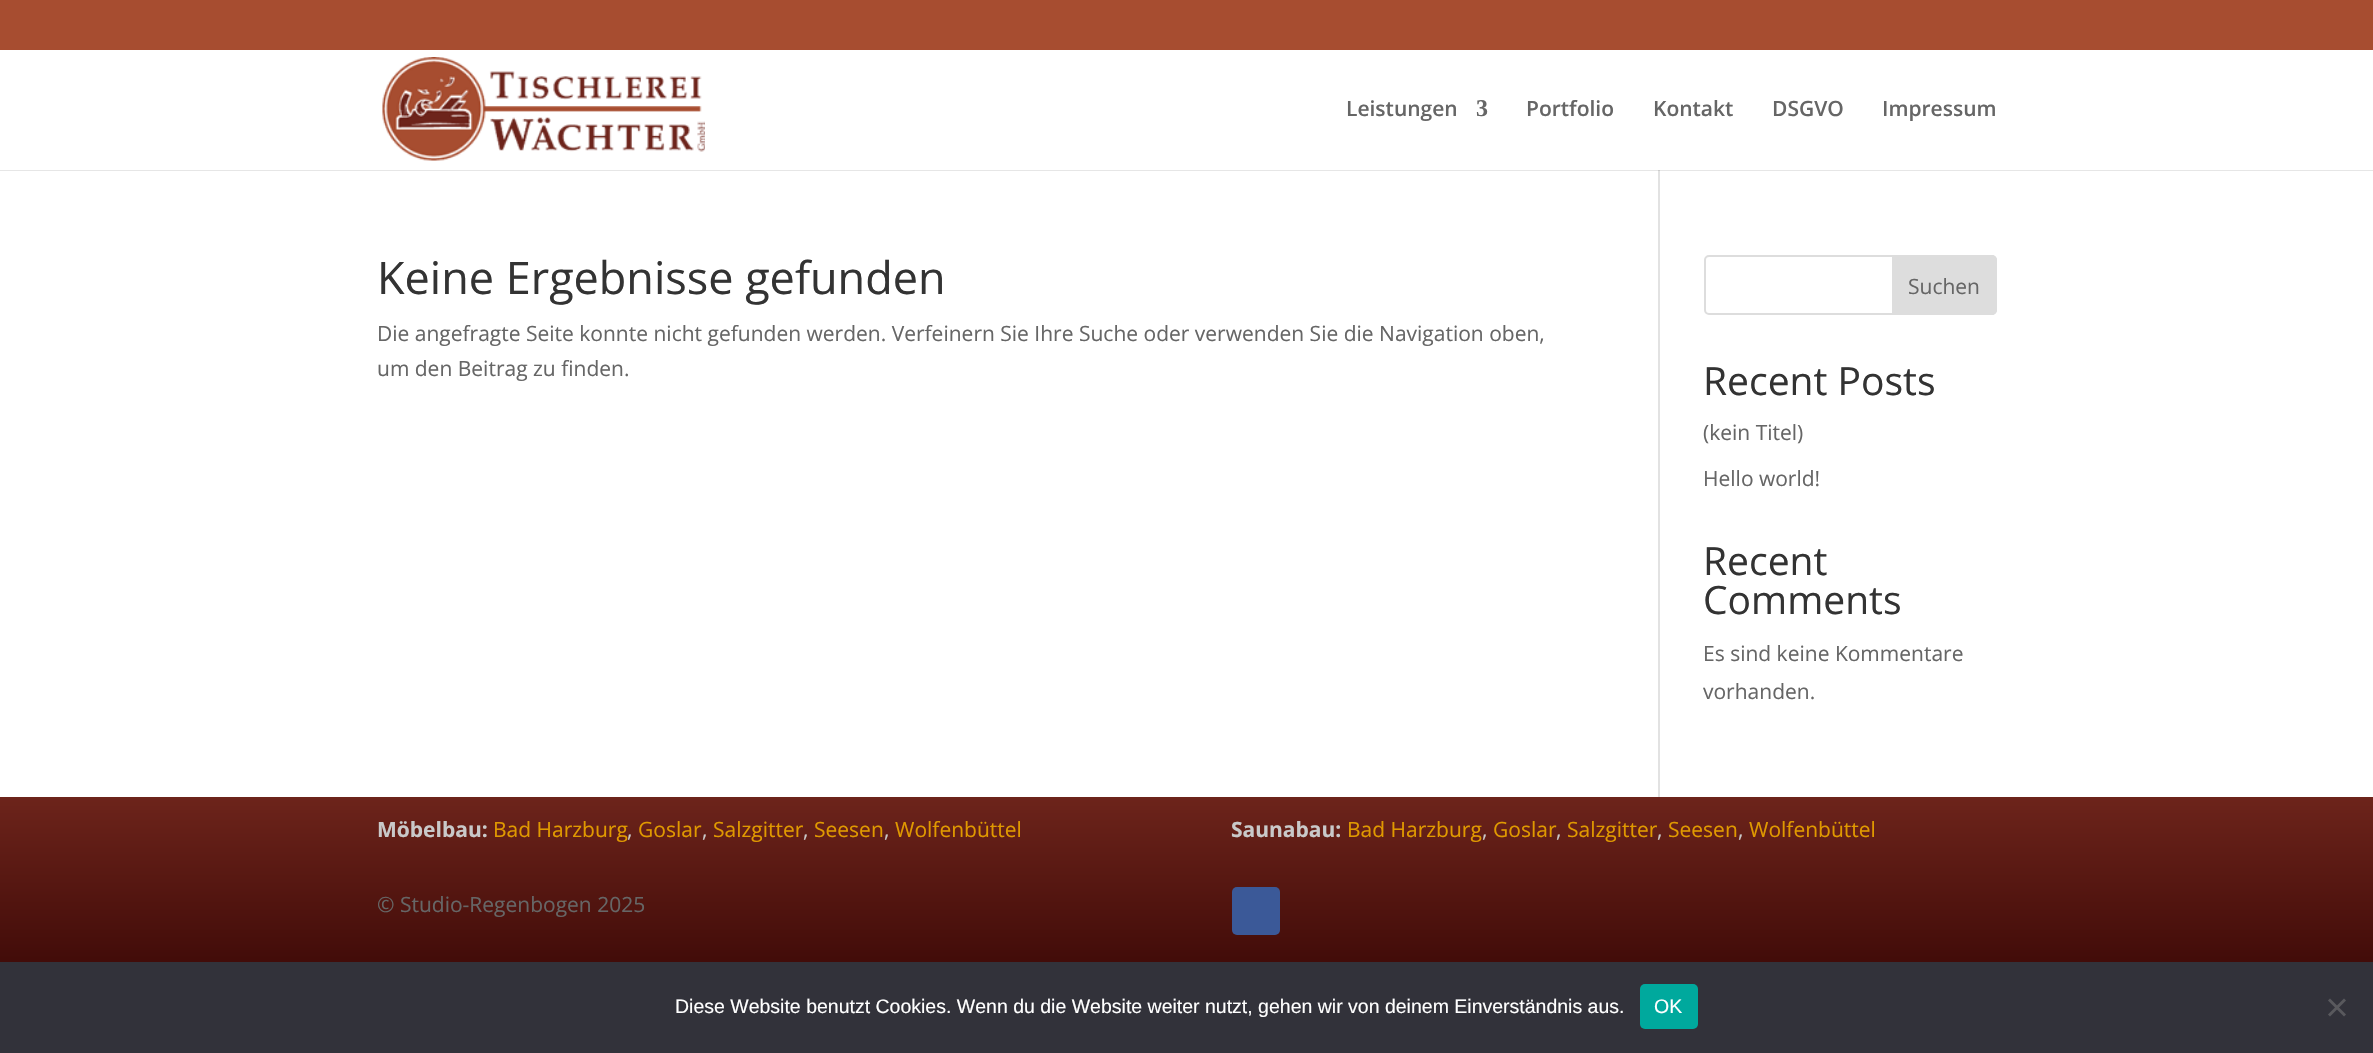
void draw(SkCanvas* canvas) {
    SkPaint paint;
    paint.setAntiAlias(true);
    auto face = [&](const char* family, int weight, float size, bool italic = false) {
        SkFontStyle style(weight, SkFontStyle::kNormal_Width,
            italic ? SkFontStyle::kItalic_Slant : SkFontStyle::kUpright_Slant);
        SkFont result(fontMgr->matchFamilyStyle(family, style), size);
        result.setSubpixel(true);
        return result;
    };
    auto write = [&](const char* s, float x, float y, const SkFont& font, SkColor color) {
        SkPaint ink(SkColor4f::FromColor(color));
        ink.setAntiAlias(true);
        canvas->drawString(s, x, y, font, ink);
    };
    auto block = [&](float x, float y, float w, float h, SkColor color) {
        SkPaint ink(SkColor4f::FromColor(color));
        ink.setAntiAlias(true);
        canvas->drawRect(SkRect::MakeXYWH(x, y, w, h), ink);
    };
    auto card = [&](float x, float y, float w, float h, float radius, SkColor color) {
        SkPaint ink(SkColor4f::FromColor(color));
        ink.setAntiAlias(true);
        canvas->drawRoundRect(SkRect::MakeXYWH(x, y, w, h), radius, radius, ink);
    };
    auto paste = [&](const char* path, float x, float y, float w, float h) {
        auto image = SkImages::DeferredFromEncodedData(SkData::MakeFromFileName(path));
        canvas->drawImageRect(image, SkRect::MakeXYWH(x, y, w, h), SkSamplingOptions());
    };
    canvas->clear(SK_ColorWHITE);
    block(0, 170, 2373, 1, SkColorSetRGB(230, 230, 230));
    block(0, 0, 2373, 50, SkColorSetRGB(167, 77, 48));
    block(1658, 168, 2, 629, SkColorSetRGB(226, 226, 226));
    block(1658, 168, 2, 2, SK_ColorWHITE);
    paste("pic1.png", 382, 57, 323, 104);
    auto kFont1 = face("Open Sans", 600, 21);
    write("Leistungen", 1346, 116, kFont1, SkColorSetRGB(102, 102, 102));
    auto kFont2 = face("Liberation Serif", 700, 24);
    write("3", 1476, 116, kFont2, SkColorSetRGB(102, 102, 102));
    write("Portfolio", 1526, 116, kFont1, SkColorSetRGB(102, 102, 102));
    write("Kontakt", 1653, 116, kFont1, SkColorSetRGB(102, 102, 102));
    write("DSGVO", 1772, 116, kFont1, SkColorSetRGB(102, 102, 102));
    write("Impressum", 1882, 116, kFont1, SkColorSetRGB(102, 102, 102));
    block(1658, 170, 2, 1, SkColorSetRGB(203, 203, 203));
    auto kFont3 = face("Open Sans", 400, 45);
    write("Keine Ergebnisse gefunden", 377, 294, kFont3, SkColorSetRGB(51, 51, 51));
    auto kFont4 = face("Open Sans", 400, 21);
    write("Die angefragte Seite konnte nicht gefunden werden. Verfeinern Sie Ihre Suche oder verwenden Sie die Navigation oben,", 377, 341, kFont4, SkColorSetRGB(102, 102, 102));
    write("um den Beitrag zu finden.", 377, 376, kFont4, SkColorSetRGB(102, 102, 102));
    paint.setStyle(SkPaint::kStroke_Style);
    paint.setStrokeWidth(2);
    paint.setColor(SkColorSetRGB(221, 221, 221));
    canvas->drawRoundRect(SkRect::MakeXYWH(1705, 256, 291, 58), 4, 4, paint);
    paint.setStyle(SkPaint::kFill_Style);
    canvas->drawPath(SkPathBuilder().moveTo(1893, 256).lineTo(1992, 256).cubicTo(1994, 256, 1996, 258, 1996, 260).lineTo(1996, 310).cubicTo(1996, 312, 1994, 314, 1992, 314).lineTo(1893, 314).close().detach(), paint);
    paint.setStyle(SkPaint::kStroke_Style);
    canvas->drawPath(SkPathBuilder().moveTo(1893, 256).lineTo(1992, 256).cubicTo(1994, 256, 1996, 258, 1996, 260).lineTo(1996, 310).cubicTo(1996, 312, 1994, 314, 1992, 314).lineTo(1893, 314).close().detach(), paint);
    write("Suchen", 1908, 294, kFont4, SkColorSetRGB(102, 102, 102));
    auto kFont5 = face("Open Sans", 400, 39);
    write("Recent Posts", 1703, 395, kFont5, SkColorSetRGB(51, 51, 51));
    write("(kein Titel)", 1703, 440, kFont4, SkColorSetRGB(102, 102, 102));
    write("Hello world!", 1703, 486, kFont4, SkColorSetRGB(102, 102, 102));
    write("Recent", 1703, 575, kFont5, SkColorSetRGB(51, 51, 51));
    write("Comments", 1703, 614, kFont5, SkColorSetRGB(51, 51, 51));
    write("Es sind keine Kommentare", 1703, 661, kFont4, SkColorSetRGB(102, 102, 102));
    write("vorhanden.", 1703, 699, kFont4, SkColorSetRGB(102, 102, 102));
    paint.setStyle(SkPaint::kFill_Style);
    {
        const SkColor colors[] = {SkColorSetRGB(109, 36, 27), SkColorSetRGB(45, 0, 0)};
        const float stops[] = {0, 1};
        const SkPoint ends[] = {{1187, 796}, {1187, 1043}};
        paint.setShader(SkGradientShader::MakeLinear(ends, colors, stops, 2, SkTileMode::kClamp));
        paint.setAlpha(255);
    }
    canvas->drawRect(SkRect::MakeXYWH(0, 797, 2373, 165), paint);
    auto kFont6 = face("Open Sans", 700, 21);
    write("Möbelbau:", 377, 837, kFont6, SkColorSetRGB(201, 201, 201));
    write("Bad Harzburg", 493, 837, kFont4, SkColorSetRGB(224, 153, 0));
    write(",", 627, 837, kFont4, SkColorSetRGB(201, 201, 201));
    write("Goslar", 638, 837, kFont4, SkColorSetRGB(224, 153, 0));
    write(",", 702, 837, kFont4, SkColorSetRGB(201, 201, 201));
    write("Salzgitter", 713, 837, kFont4, SkColorSetRGB(224, 153, 0));
    write(",", 803, 837, kFont4, SkColorSetRGB(201, 201, 201));
    write("Seesen", 814, 837, kFont4, SkColorSetRGB(224, 153, 0));
    write(",", 884, 837, kFont4, SkColorSetRGB(201, 201, 201));
    write("Wolfenbüttel", 895, 837, kFont4, SkColorSetRGB(224, 153, 0));
    write("Saunabau:", 1231, 837, kFont6, SkColorSetRGB(201, 201, 201));
    write("Bad Harzburg", 1347, 837, kFont4, SkColorSetRGB(224, 153, 0));
    write(",", 1482, 837, kFont4, SkColorSetRGB(201, 201, 201));
    write("Goslar", 1493, 837, kFont4, SkColorSetRGB(224, 153, 0));
    write(",", 1556, 837, kFont4, SkColorSetRGB(201, 201, 201));
    write("Salzgitter", 1567, 837, kFont4, SkColorSetRGB(224, 153, 0));
    write(",", 1657, 837, kFont4, SkColorSetRGB(201, 201, 201));
    write("Seesen", 1668, 837, kFont4, SkColorSetRGB(224, 153, 0));
    write(",", 1738, 837, kFont4, SkColorSetRGB(201, 201, 201));
    write("Wolfenbüttel", 1749, 837, kFont4, SkColorSetRGB(224, 153, 0));
    write("© Studio-Regenbogen 2025", 377, 912, kFont4, SkColorSetRGB(102, 102, 102));
    card(1232, 887, 48, 48, 5, SkColorSetRGB(59, 89, 152));
    block(0, 962, 2373, 91, SkColorSetRGB(50, 50, 58));
    auto kFont7 = face("Liberation Sans", 400, 19.5f);
    write("Diese Website benutzt Cookies. Wenn du die Website weiter nutzt, gehen wir von deinem Einverständnis aus.", 675, 1013, kFont7, SK_ColorWHITE);
    card(1640, 984, 58, 45, 5, SkColorSetRGB(0, 169, 157));
    write("OK", 1654, 1013, kFont7, SK_ColorWHITE);
    paint.setShader(nullptr);
    paint.setColor(SkColorSetRGB(89, 89, 93));
    canvas->drawPath(SkPathBuilder().moveTo(2344, 998.5f).lineTo(2346, 1000.5f).lineTo(2330, 1016.5f).lineTo(2328, 1014.5f).close().detach(), paint);
    canvas->drawPath(SkPathBuilder().moveTo(2328, 1000.5f).lineTo(2330, 998.5f).lineTo(2346, 1014.5f).lineTo(2344, 1016.5f).close().detach(), paint);
}
